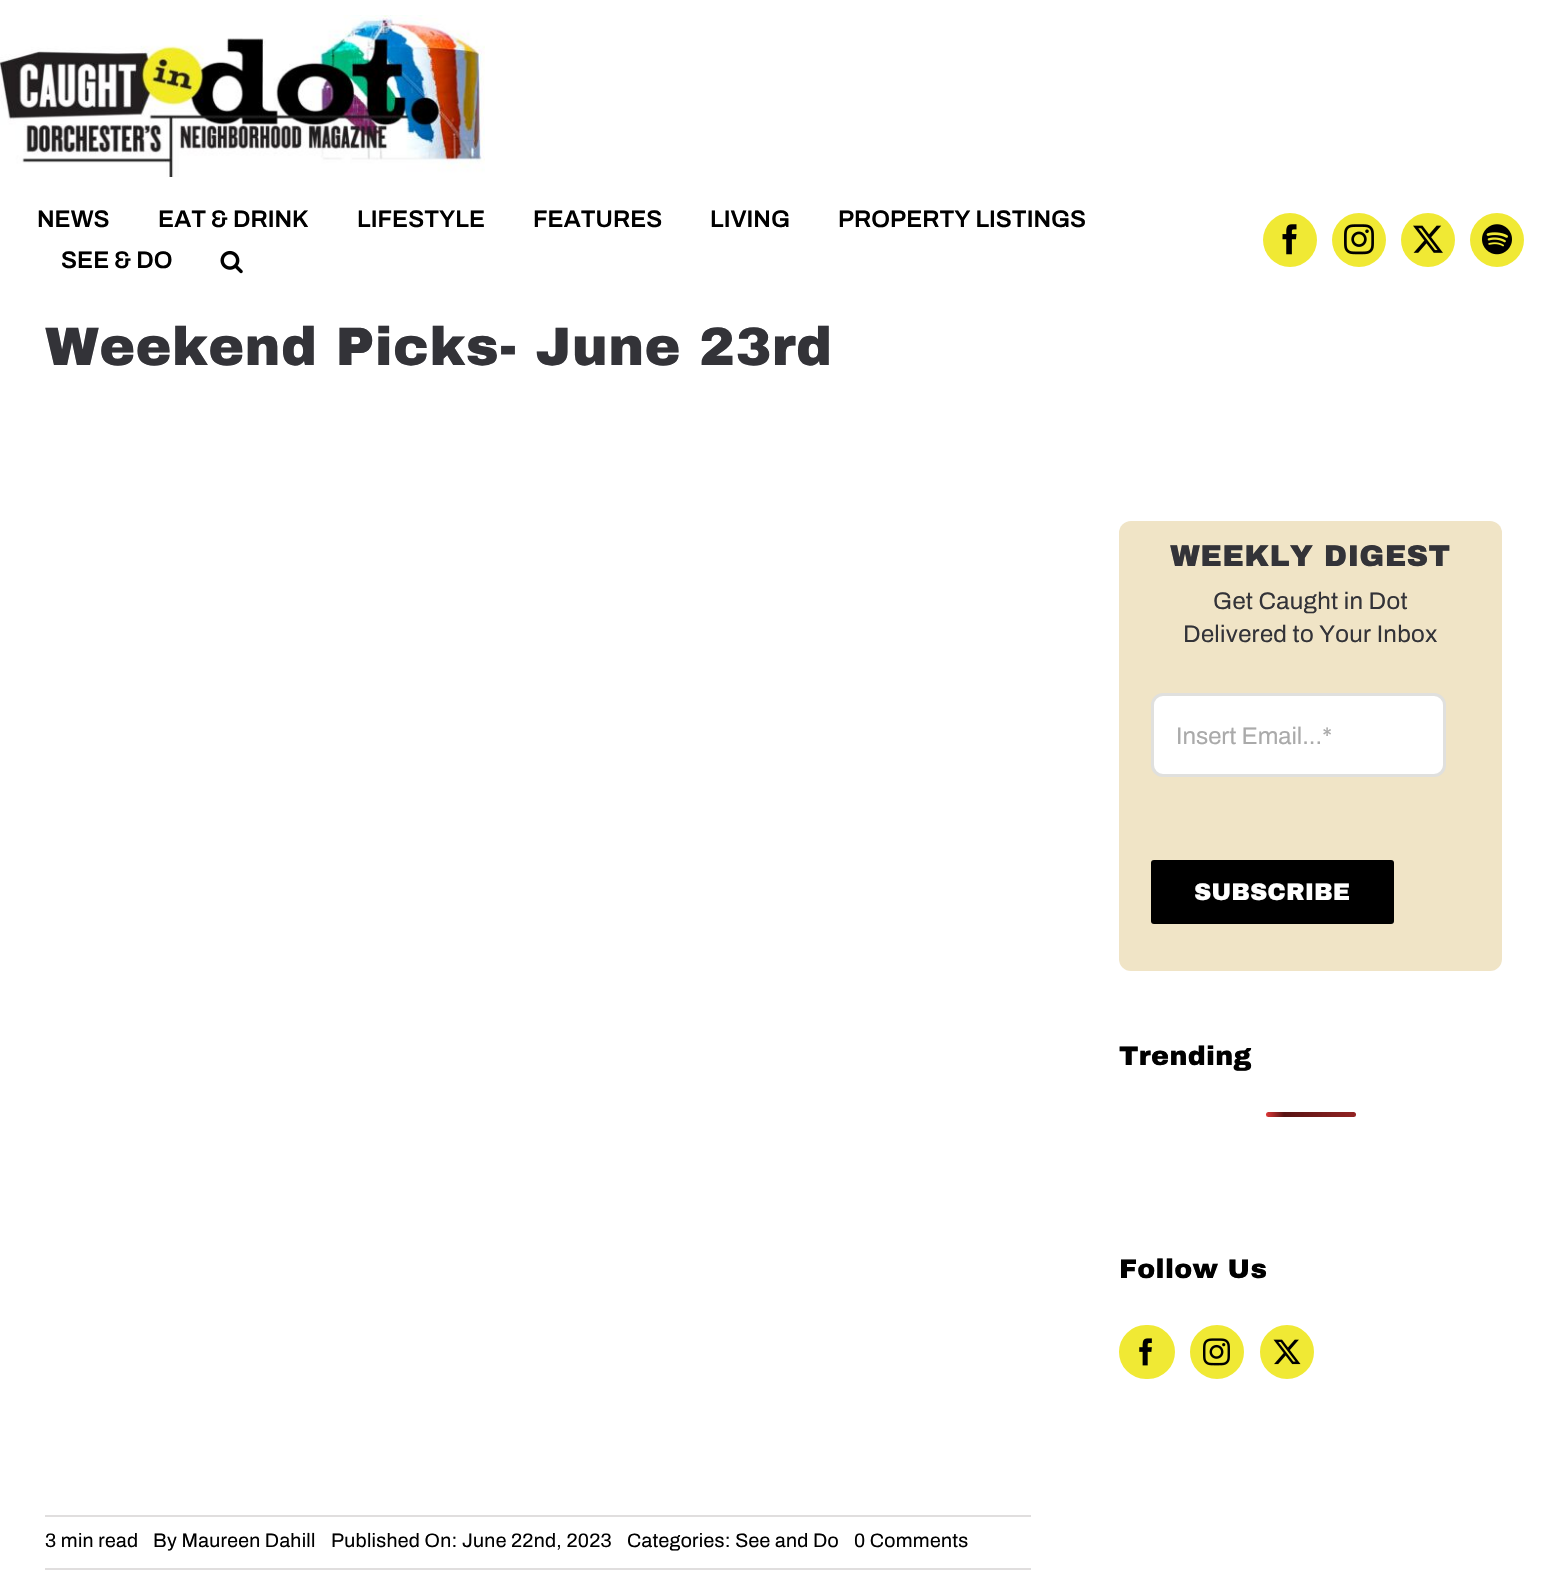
void draw(SkCanvas* canvas) {
    SkPaint paint;
    paint.setAntiAlias(true);
    auto face = [&](const char* family, int weight, float size, bool italic = false) {
        SkFontStyle style(weight, SkFontStyle::kNormal_Width,
            italic ? SkFontStyle::kItalic_Slant : SkFontStyle::kUpright_Slant);
        SkFont result(fontMgr->matchFamilyStyle(family, style), size);
        result.setSubpixel(true);
        return result;
    };
    auto write = [&](const char* s, float x, float y, const SkFont& font, SkColor color) {
        SkPaint ink(SkColor4f::FromColor(color));
        ink.setAntiAlias(true);
        canvas->drawString(s, x, y, font, ink);
    };
    auto writeSpaced = [&](const char* s, float x, float y, const SkFont& font, const SkPaint& ink, float letter, float word) {
        std::vector<SkGlyphID> glyphs(font.countText(s, strlen(s), SkTextEncoding::kUTF8));
        std::vector<float> xs(glyphs.size());
        font.textToGlyphs(s, strlen(s), SkTextEncoding::kUTF8, glyphs);
        font.getXPos(glyphs, xs, x);
        float extra = 0;
        for (size_t i = 0; i < glyphs.size(); i++) {
            xs[i] += extra;
            extra += letter + word * (glyphs[i] == font.unicharToGlyph(' '));
        }
        canvas->drawTextBlob(SkTextBlob::MakeFromPosHGlyphs(glyphs, xs, y, font), 0, 0, ink);
    };
    auto block = [&](float x, float y, float w, float h, SkColor color) {
        SkPaint ink(SkColor4f::FromColor(color));
        ink.setAntiAlias(true);
        canvas->drawRect(SkRect::MakeXYWH(x, y, w, h), ink);
    };
    auto card = [&](float x, float y, float w, float h, float radius, SkColor color) {
        SkPaint ink(SkColor4f::FromColor(color));
        ink.setAntiAlias(true);
        canvas->drawRoundRect(SkRect::MakeXYWH(x, y, w, h), radius, radius, ink);
    };
    auto paste = [&](const char* path, float x, float y, float w, float h) {
        auto image = SkImages::DeferredFromEncodedData(SkData::MakeFromFileName(path));
        canvas->drawImageRect(image, SkRect::MakeXYWH(x, y, w, h), SkSamplingOptions());
    };
    canvas->clear(SK_ColorWHITE);
    paste("pic1.png", 0, 15, 485, 162);
    auto kFont1 = face("Archivo", 600, 24);
    write("NEWS", 37, 227, kFont1, SK_ColorBLACK);
    write("EAT & DRINK", 158, 227, kFont1, SK_ColorBLACK);
    write("LIFESTYLE", 357, 227, kFont1, SK_ColorBLACK);
    write("FEATURES", 533, 227, kFont1, SK_ColorBLACK);
    write("LIVING", 710, 227, kFont1, SK_ColorBLACK);
    write("PROPERTY LISTINGS", 838, 227, kFont1, SK_ColorBLACK);
    write("SEE & DO", 61, 268, kFont1, SK_ColorBLACK);
    paste("pic2.png", 220, 250, 23, 24);
    paint.setColor(SkColorSetRGB(240, 233, 52));
    canvas->drawCircle(1290, 240, 27, paint);
    paste("pic3.png", 1282, 224, 15, 31);
    canvas->drawCircle(1359, 240, 27, paint);
    paste("pic4.png", 1344, 224, 30, 31);
    canvas->drawCircle(1428, 240, 27, paint);
    paste("pic5.png", 1413, 225, 30, 28);
    canvas->drawCircle(1497, 240, 27, paint);
    paste("pic6.png", 1482, 224, 30, 31);
    auto kFont2 = face("Archivo Black", 900, 54);
    paint.setColor(SkColorSetRGB(51, 51, 56));
    writeSpaced("Weekend Picks- June 23rd", 45, 365, kFont2, paint, 0.3f, 0);
    card(1119, 521, 383, 450, 12, SkColorSetRGB(240, 228, 198));
    auto kFont3 = face("Archivo Black", 900, 30);
    writeSpaced("WEEKLY DIGEST", 1170, 566, kFont3, paint, 0.3f, 0);
    auto kFont4 = face("Archivo", 400, 24);
    writeSpaced("Get Caught in Dot", 1213, 609, kFont4, paint, 0.3f, 0);
    writeSpaced("Delivered to Your Inbox", 1183, 642, kFont4, paint, 0.3f, 0);
    paint.setColor(SK_ColorWHITE);
    canvas->drawRoundRect(SkRect::MakeXYWH(1152.5f, 694.5f, 292, 81), 10.5f, 10.5f, paint);
    paint.setStyle(SkPaint::kStroke_Style);
    paint.setStrokeWidth(3);
    paint.setColor(SkColorSetRGB(224, 224, 222));
    canvas->drawRoundRect(SkRect::MakeXYWH(1152.5f, 694.5f, 292, 81), 10.5f, 10.5f, paint);
    write("Insert Email...*", 1176, 744, kFont4, SkColorSetRGB(170, 170, 170));
    card(1151, 860, 243, 64, 3, SK_ColorBLACK);
    auto kFont5 = face("Archivo Black", 900, 24);
    write("SUBSCRIBE", 1194, 900, kFont5, SK_ColorWHITE);
    auto kFont6 = face("Archivo Black", 900, 27);
    paint.setStyle(SkPaint::kFill_Style);
    paint.setColor(SK_ColorBLACK);
    writeSpaced("Trending", 1119, 1065, kFont6, paint, 0.3f, 0);
    {
        const SkColor colors[] = {SkColorSetRGB(221, 55, 55), SkColorSetRGB(87, 19, 19), SkColorSetRGB(221, 55, 55)};
        const float stops[] = {0, 0.1f, 1};
        const SkPoint ends[] = {{1266, 1114}, {1446, 1114}};
        paint.setShader(SkGradientShader::MakeLinear(ends, colors, stops, 3, SkTileMode::kClamp));
        paint.setAlpha(255);
    }
    canvas->drawRoundRect(SkRect::MakeXYWH(1266, 1112, 90, 5), 2.5f, 2.5f, paint);
    paint.setShader(nullptr);
    paint.setColor(SK_ColorBLACK);
    writeSpaced("Follow Us", 1119, 1278, kFont6, paint, 0.3f, 0);
    paint.setColor(SkColorSetRGB(240, 233, 52));
    canvas->drawRoundRect(SkRect::MakeXYWH(1120, 1326, 54, 52), 26, 26, paint);
    paint.setStyle(SkPaint::kStroke_Style);
    paint.setStrokeWidth(2);
    canvas->drawRoundRect(SkRect::MakeXYWH(1120, 1326, 54, 52), 26, 26, paint);
    paste("pic7.png", 1139, 1338, 13, 28);
    paint.setStyle(SkPaint::kFill_Style);
    canvas->drawCircle(1217, 1352, 26, paint);
    paint.setStyle(SkPaint::kStroke_Style);
    canvas->drawCircle(1217, 1352, 26, paint);
    paste("pic8.png", 1203, 1338, 27, 28);
    paint.setStyle(SkPaint::kFill_Style);
    canvas->drawCircle(1287, 1352, 26, paint);
    paint.setStyle(SkPaint::kStroke_Style);
    canvas->drawCircle(1287, 1352, 26, paint);
    paste("pic9.png", 1273, 1339, 28, 26);
    block(45, 1515, 986, 2, SkColorSetRGB(224, 222, 222));
    block(45, 1568, 986, 2, SkColorSetRGB(224, 222, 222));
    auto kFont7 = face("Archivo", 400, 19.5f);
    paint.setStyle(SkPaint::kFill_Style);
    paint.setColor(SK_ColorBLACK);
    writeSpaced("3 min read", 45, 1547, kFont7, paint, 0.3f, 0);
    writeSpaced("By Maureen Dahill", 153, 1547, kFont7, paint, 0.3f, 0);
    writeSpaced("Published On: June 22nd, 2023", 331, 1547, kFont7, paint, 0.3f, 0);
    writeSpaced("Categories: See and Do", 627, 1547, kFont7, paint, 0.3f, 0);
    writeSpaced("0 Comments", 854, 1547, kFont7, paint, 0.3f, 0);
}
